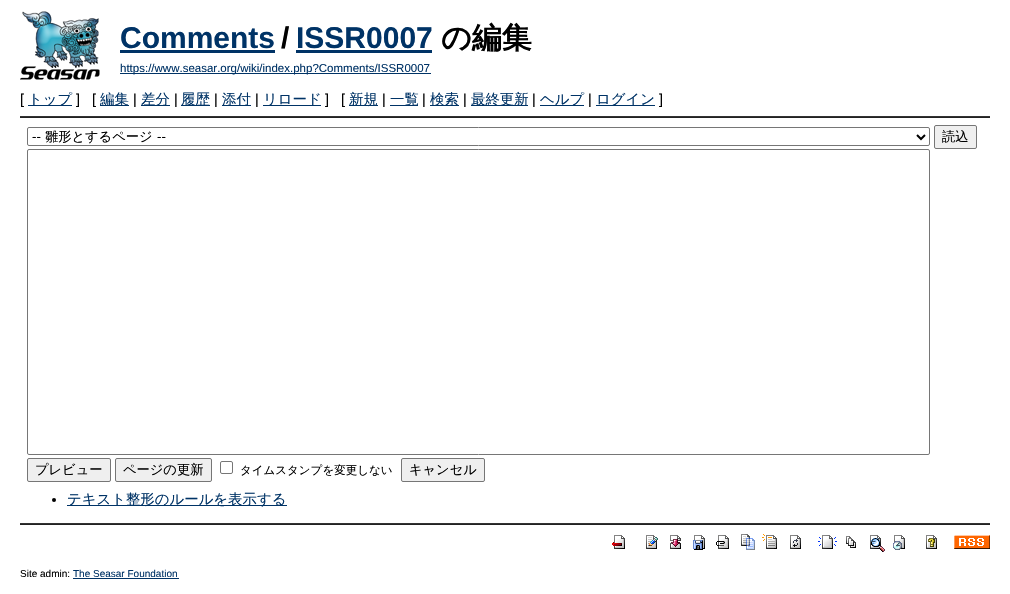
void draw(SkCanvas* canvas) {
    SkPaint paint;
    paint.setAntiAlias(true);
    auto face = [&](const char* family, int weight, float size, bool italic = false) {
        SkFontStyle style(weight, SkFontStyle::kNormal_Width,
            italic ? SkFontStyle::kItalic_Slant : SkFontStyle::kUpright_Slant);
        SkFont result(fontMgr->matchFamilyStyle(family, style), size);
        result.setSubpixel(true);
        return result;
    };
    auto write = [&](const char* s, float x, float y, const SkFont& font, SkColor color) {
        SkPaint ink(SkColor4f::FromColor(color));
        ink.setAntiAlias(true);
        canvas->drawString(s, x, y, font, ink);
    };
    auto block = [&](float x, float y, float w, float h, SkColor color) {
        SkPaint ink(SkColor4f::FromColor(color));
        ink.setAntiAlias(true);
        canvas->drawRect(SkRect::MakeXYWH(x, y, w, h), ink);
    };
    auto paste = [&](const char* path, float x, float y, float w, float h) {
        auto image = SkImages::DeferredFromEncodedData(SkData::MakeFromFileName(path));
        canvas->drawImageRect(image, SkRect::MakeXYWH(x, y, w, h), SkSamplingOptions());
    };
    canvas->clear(SK_ColorWHITE);
    paste("pic1.png", 20, 11, 80, 69);
    auto kFont1 = face("Liberation Sans", 700, 30);
    write("Comments", 120, 48, kFont1, SkColorSetRGB(0, 51, 102));
    block(120, 50, 155, 3, SkColorSetRGB(0, 51, 102));
    write("/", 281, 48, kFont1, SK_ColorBLACK);
    write("ISSR0007", 296, 48, kFont1, SkColorSetRGB(0, 51, 102));
    block(296, 50, 136, 3, SkColorSetRGB(0, 51, 102));
    auto kFont2 = face("WenQuanYi Zen Hei", 700, 30);
    write("の編集", 441, 48, kFont2, SK_ColorBLACK);
    block(120, 73, 311, 1, SkColorSetRGB(0, 51, 102));
    auto kFont3 = face("Liberation Sans", 400, 11.5f);
    write("https://www.seasar.org/wiki/index.php?Comments/ISSR0007", 120, 72, kFont3, SkColorSetRGB(0, 51, 102));
    auto kFont4 = face("Liberation Sans", 400, 14.4f);
    write("[", 20, 104, kFont4, SK_ColorBLACK);
    block(28, 105, 44, 1, SkColorSetRGB(0, 51, 102));
    auto kFont5 = face("WenQuanYi Zen Hei", 500, 14.4f);
    write("トップ", 28, 104, kFont5, SkColorSetRGB(0, 51, 102));
    write("]", 76, 104, kFont4, SK_ColorBLACK);
    write("[", 92, 104, kFont4, SK_ColorBLACK);
    block(100, 105, 29, 1, SkColorSetRGB(0, 51, 102));
    write("編集", 100, 104, kFont5, SkColorSetRGB(0, 51, 102));
    write("|", 133, 104, kFont4, SK_ColorBLACK);
    block(141, 105, 29, 1, SkColorSetRGB(0, 51, 102));
    write("差分", 141, 104, kFont5, SkColorSetRGB(0, 51, 102));
    write("|", 174, 104, kFont4, SK_ColorBLACK);
    block(181, 105, 29, 1, SkColorSetRGB(0, 51, 102));
    write("履歴", 181, 104, kFont5, SkColorSetRGB(0, 51, 102));
    write("|", 214, 104, kFont4, SK_ColorBLACK);
    block(222, 105, 29, 1, SkColorSetRGB(0, 51, 102));
    write("添付", 222, 104, kFont5, SkColorSetRGB(0, 51, 102));
    write("|", 255, 104, kFont4, SK_ColorBLACK);
    block(263, 105, 58, 1, SkColorSetRGB(0, 51, 102));
    write("リロード", 263, 104, kFont5, SkColorSetRGB(0, 51, 102));
    write("]", 325, 104, kFont4, SK_ColorBLACK);
    write("[", 341, 104, kFont4, SK_ColorBLACK);
    block(349, 105, 29, 1, SkColorSetRGB(0, 51, 102));
    write("新規", 349, 104, kFont5, SkColorSetRGB(0, 51, 102));
    write("|", 382, 104, kFont4, SK_ColorBLACK);
    block(390, 105, 28, 1, SkColorSetRGB(0, 51, 102));
    write("一覧", 390, 104, kFont5, SkColorSetRGB(0, 51, 102));
    write("|", 422, 104, kFont4, SK_ColorBLACK);
    block(430, 105, 29, 1, SkColorSetRGB(0, 51, 102));
    write("検索", 430, 104, kFont5, SkColorSetRGB(0, 51, 102));
    write("|", 463, 104, kFont4, SK_ColorBLACK);
    block(471, 105, 57, 1, SkColorSetRGB(0, 51, 102));
    write("最終更新", 471, 104, kFont5, SkColorSetRGB(0, 51, 102));
    write("|", 532, 104, kFont4, SK_ColorBLACK);
    block(540, 105, 44, 1, SkColorSetRGB(0, 51, 102));
    write("ヘルプ", 540, 104, kFont5, SkColorSetRGB(0, 51, 102));
    write("|", 588, 104, kFont4, SK_ColorBLACK);
    block(596, 105, 59, 1, SkColorSetRGB(0, 51, 102));
    write("ログイン", 596, 104, kFont5, SkColorSetRGB(0, 51, 102));
    write("]", 659, 104, kFont4, SK_ColorBLACK);
    block(20, 116, 970, 1, SkColorSetRGB(51, 51, 51));
    block(20, 117, 970, 1, SkColorSetRGB(34, 34, 34));
    paint.setStyle(SkPaint::kStroke_Style);
    paint.setStrokeWidth(1);
    paint.setColor(SkColorSetRGB(118, 118, 118));
    canvas->drawRoundRect(SkRect::MakeXYWH(27.5f, 127.5f, 902, 18), 1.5f, 1.5f, paint);
    paint.setStrokeWidth(2);
    paint.setColor(SK_ColorBLACK);
    canvas->drawPath(SkPathBuilder().moveTo(917, 135).lineTo(921, 139).lineTo(925, 135).detach(), paint);
    auto kFont6 = face("Liberation Sans", 400, 13.25f);
    write("--", 32, 141, kFont6, SK_ColorBLACK);
    auto kFont7 = face("WenQuanYi Zen Hei", 500, 13.25f);
    write("雛形とするページ", 45, 141, kFont7, SK_ColorBLACK);
    write("--", 157, 141, kFont6, SK_ColorBLACK);
    paint.setStyle(SkPaint::kFill_Style);
    paint.setColor(SkColorSetRGB(239, 239, 239));
    canvas->drawRoundRect(SkRect::MakeXYWH(934.5f, 125.5f, 42, 23), 1.5f, 1.5f, paint);
    paint.setStyle(SkPaint::kStroke_Style);
    paint.setStrokeWidth(1);
    paint.setColor(SkColorSetRGB(118, 118, 118));
    canvas->drawRoundRect(SkRect::MakeXYWH(934.5f, 125.5f, 42, 23), 1.5f, 1.5f, paint);
    write("読込", 942, 141, kFont7, SK_ColorBLACK);
    canvas->drawRoundRect(SkRect::MakeXYWH(27.5f, 149.5f, 902, 305), 1.5f, 1.5f, paint);
    paint.setStyle(SkPaint::kFill_Style);
    paint.setColor(SkColorSetRGB(239, 239, 239));
    canvas->drawRoundRect(SkRect::MakeXYWH(27.5f, 458.5f, 83, 23), 1.5f, 1.5f, paint);
    paint.setStyle(SkPaint::kStroke_Style);
    paint.setColor(SkColorSetRGB(118, 118, 118));
    canvas->drawRoundRect(SkRect::MakeXYWH(27.5f, 458.5f, 83, 23), 1.5f, 1.5f, paint);
    write("プレビュー", 35, 474, kFont7, SK_ColorBLACK);
    paint.setStyle(SkPaint::kFill_Style);
    paint.setColor(SkColorSetRGB(239, 239, 239));
    canvas->drawRoundRect(SkRect::MakeXYWH(115.5f, 458.5f, 96, 23), 1.5f, 1.5f, paint);
    paint.setStyle(SkPaint::kStroke_Style);
    paint.setColor(SkColorSetRGB(118, 118, 118));
    canvas->drawRoundRect(SkRect::MakeXYWH(115.5f, 458.5f, 96, 23), 1.5f, 1.5f, paint);
    write("ページの更新", 123, 474, kFont7, SK_ColorBLACK);
    canvas->drawRoundRect(SkRect::MakeXYWH(220.5f, 461.5f, 12, 12), 1.5f, 1.5f, paint);
    auto kFont8 = face("WenQuanYi Zen Hei", 500, 11.5f);
    write("タイムスタンプを変更しない", 240, 474, kFont8, SK_ColorBLACK);
    paint.setStyle(SkPaint::kFill_Style);
    paint.setColor(SkColorSetRGB(239, 239, 239));
    canvas->drawRoundRect(SkRect::MakeXYWH(401.5f, 458.5f, 83, 23), 1.5f, 1.5f, paint);
    paint.setStyle(SkPaint::kStroke_Style);
    paint.setColor(SkColorSetRGB(118, 118, 118));
    canvas->drawRoundRect(SkRect::MakeXYWH(401.5f, 458.5f, 83, 23), 1.5f, 1.5f, paint);
    write("キャンセル", 409, 474, kFont7, SK_ColorBLACK);
    paint.setStyle(SkPaint::kFill_Style);
    paint.setColor(SK_ColorBLACK);
    canvas->drawCircle(54, 500, 2, paint);
    block(67, 505, 220, 1, SkColorSetRGB(0, 51, 102));
    write("テキスト整形のルールを表示する", 67, 504, kFont5, SkColorSetRGB(0, 51, 102));
    block(20, 523, 970, 1, SkColorSetRGB(51, 51, 51));
    block(20, 524, 970, 1, SkColorSetRGB(34, 34, 34));
    paste("pic2.png", 612, 535, 13, 14);
    paste("pic3.png", 646, 535, 12, 14);
    paste("pic4.png", 670, 535, 11, 14);
    paste("pic5.png", 693, 535, 12, 15);
    paste("pic6.png", 716, 535, 13, 14);
    paste("pic7.png", 741, 534, 14, 16);
    paste("pic8.png", 762, 534, 15, 15);
    paste("pic9.png", 790, 535, 11, 14);
    paste("pic10.png", 818, 535, 19, 14);
    paste("pic11.png", 846, 536, 10, 12);
    paste("pic12.png", 870, 535, 15, 17);
    paste("pic13.png", 893, 535, 12, 15);
    paste("pic14.png", 926, 535, 11, 14);
    paste("pic15.png", 954, 535, 36, 14);
    auto kFont9 = face("Liberation Sans", 400, 10);
    write("Site admin:", 20, 577, kFont9, SK_ColorBLACK);
    write("The Seasar Foundation", 73, 577, kFont9, SkColorSetRGB(0, 51, 102));
    block(73, 578, 106, 1, SkColorSetRGB(0, 51, 102));
}
